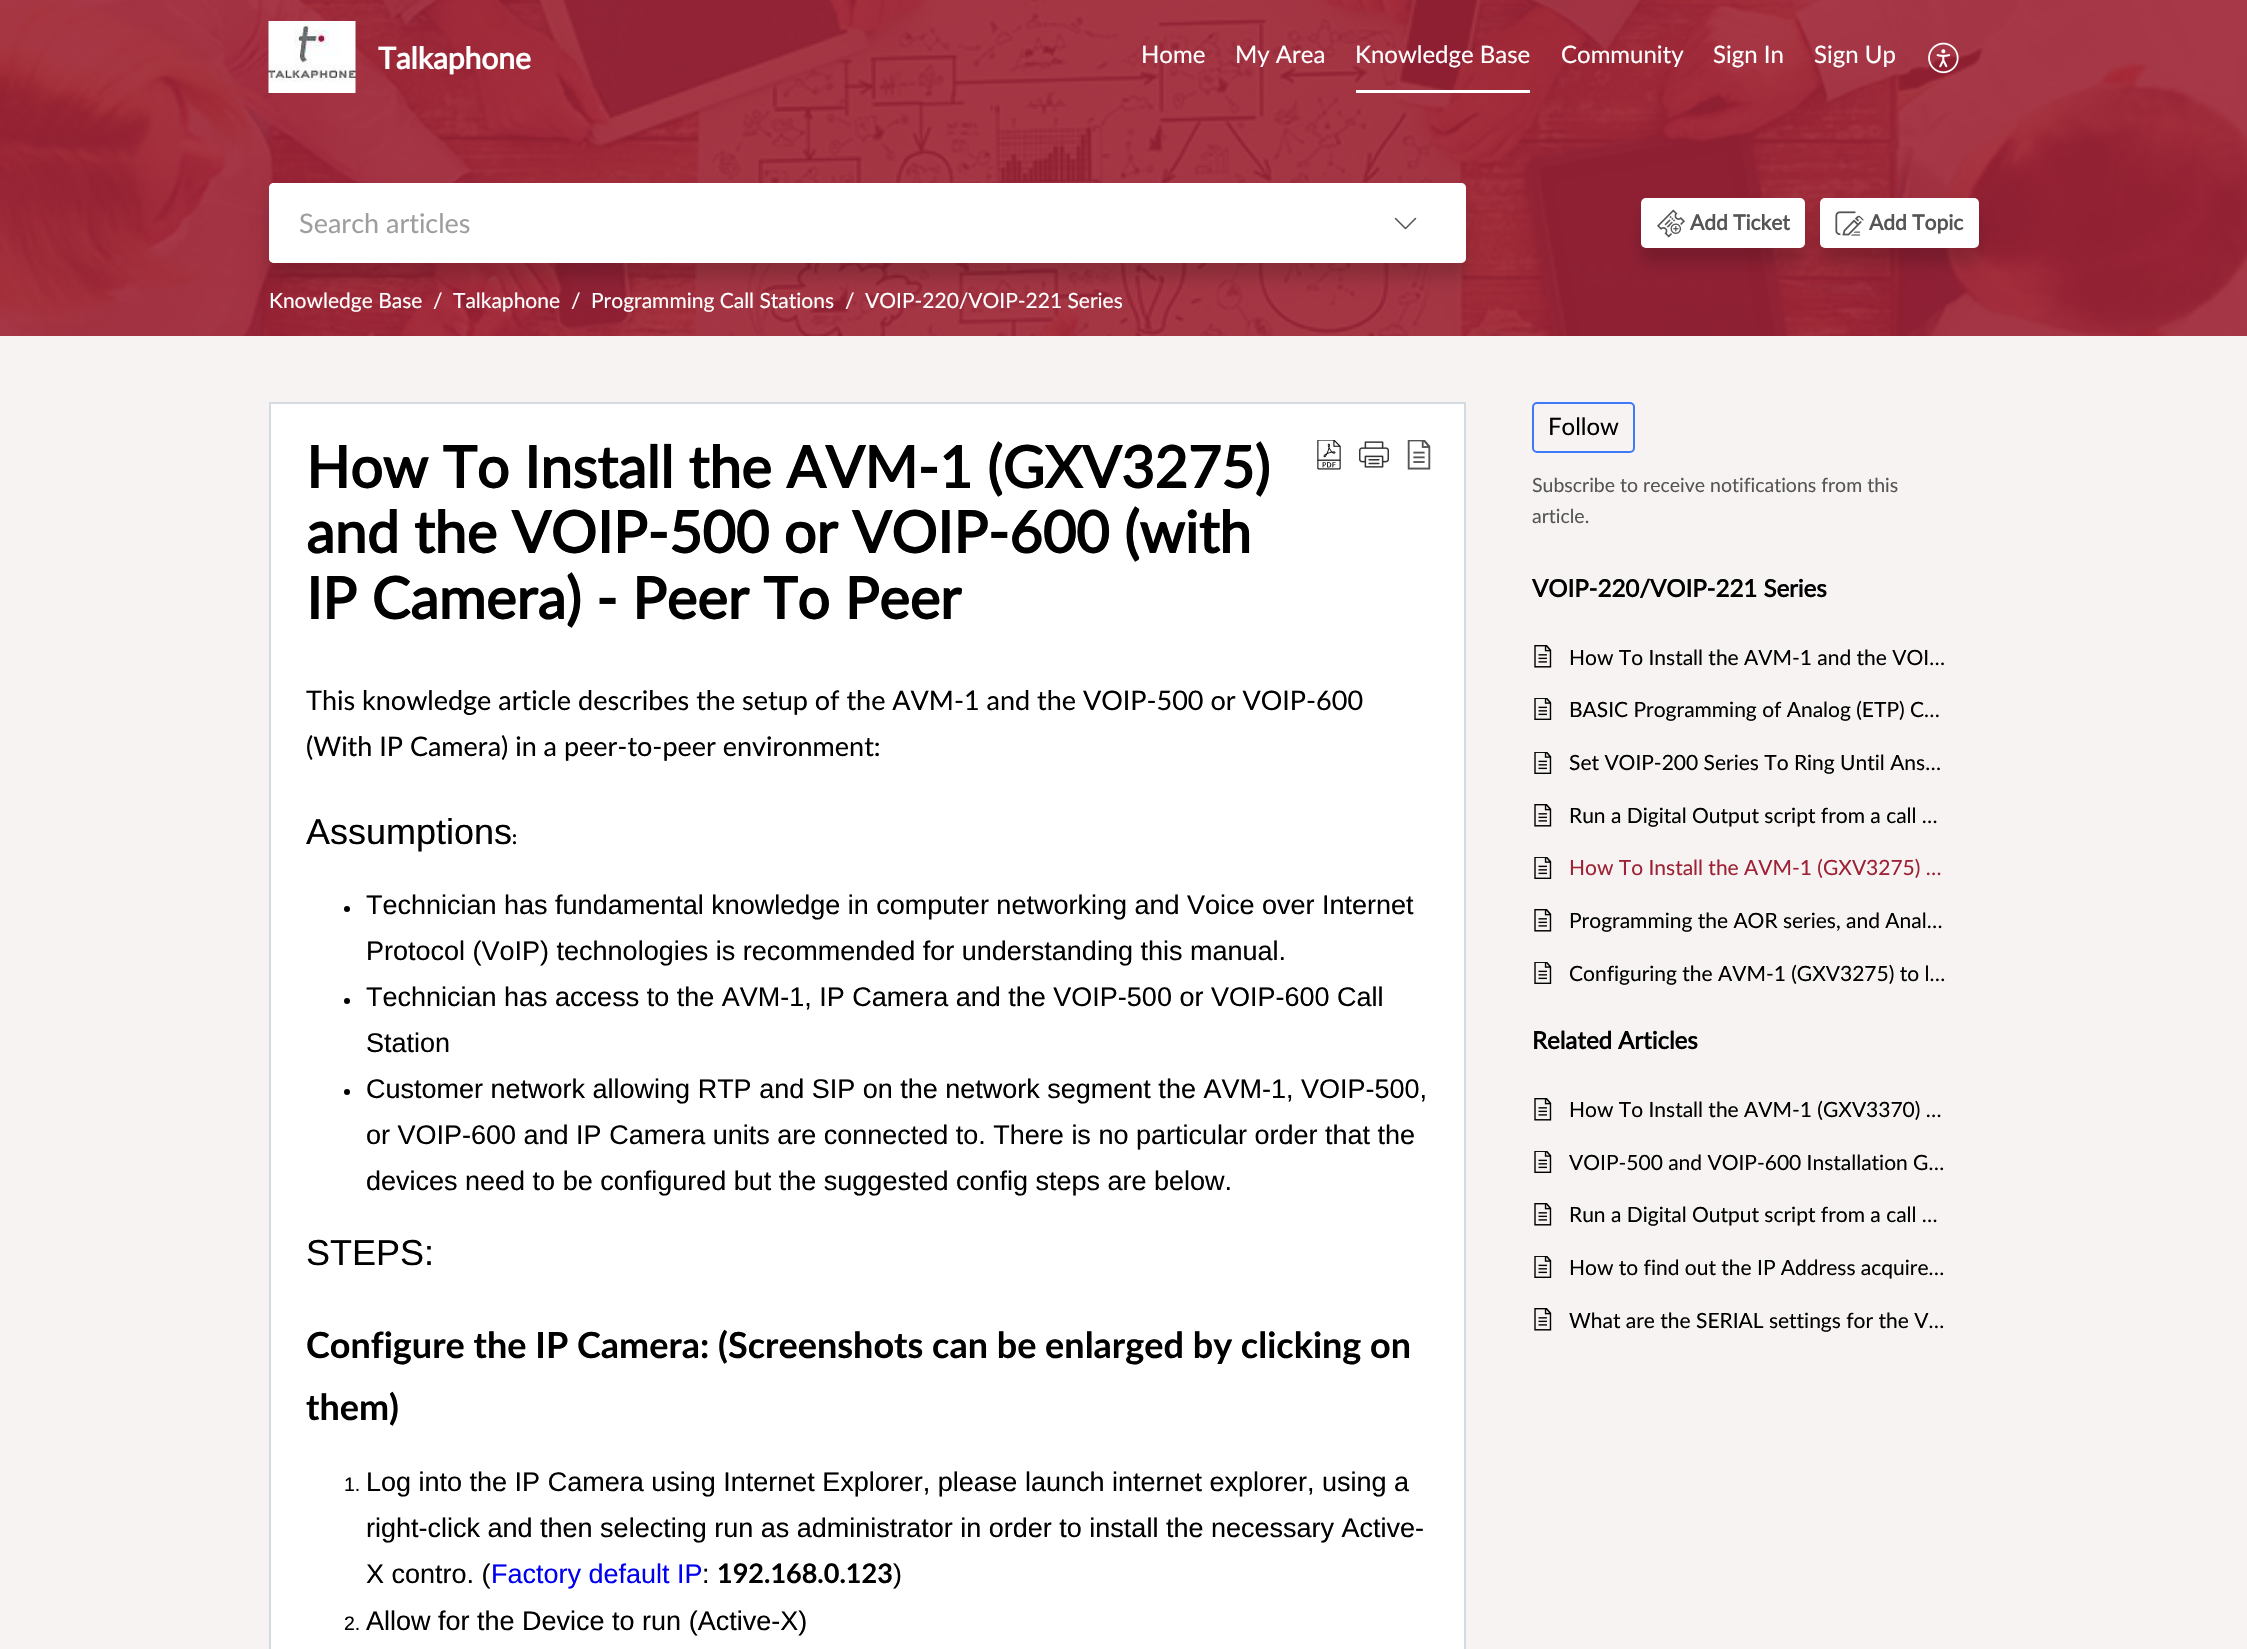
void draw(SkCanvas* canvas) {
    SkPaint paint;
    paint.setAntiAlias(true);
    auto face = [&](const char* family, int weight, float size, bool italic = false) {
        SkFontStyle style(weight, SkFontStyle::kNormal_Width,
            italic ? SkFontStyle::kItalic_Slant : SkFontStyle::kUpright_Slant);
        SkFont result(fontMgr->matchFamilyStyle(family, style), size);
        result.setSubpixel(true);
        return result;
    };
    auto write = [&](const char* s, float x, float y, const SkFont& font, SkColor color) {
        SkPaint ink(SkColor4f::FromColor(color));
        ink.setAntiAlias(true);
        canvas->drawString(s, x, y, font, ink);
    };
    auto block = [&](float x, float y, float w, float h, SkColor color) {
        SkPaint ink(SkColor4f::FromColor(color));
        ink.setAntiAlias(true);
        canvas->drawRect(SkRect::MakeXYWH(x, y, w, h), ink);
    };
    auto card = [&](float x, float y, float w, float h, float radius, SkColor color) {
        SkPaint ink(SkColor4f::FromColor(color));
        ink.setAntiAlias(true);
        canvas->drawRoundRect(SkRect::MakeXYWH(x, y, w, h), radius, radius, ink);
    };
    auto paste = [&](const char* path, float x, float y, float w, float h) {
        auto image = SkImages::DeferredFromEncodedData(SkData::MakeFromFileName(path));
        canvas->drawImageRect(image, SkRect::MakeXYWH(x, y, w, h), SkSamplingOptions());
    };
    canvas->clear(SkColorSetRGB(247, 243, 243));
    paste("pic1.png", 0, 0, 2247, 336);
    paste("pic2.png", 268, 21, 88, 72);
    auto kFont1 = face("Lato", 700, 30);
    write("Talkaphone", 378, 69, kFont1, SK_ColorWHITE);
    auto kFont2 = face("Lato", 400, 24);
    write("Home", 1141, 63, kFont2, SK_ColorWHITE);
    write("My Area", 1235, 63, kFont2, SK_ColorWHITE);
    block(1356, 90, 174, 3, SK_ColorWHITE);
    write("Knowledge Base", 1355, 63, kFont2, SK_ColorWHITE);
    write("Community", 1561, 63, kFont2, SK_ColorWHITE);
    write("Sign In", 1713, 63, kFont2, SK_ColorWHITE);
    write("Sign Up", 1814, 63, kFont2, SK_ColorWHITE);
    paste("pic3.png", 1928, 42, 31, 32);
    paint.setColor(SkColorSetARGB(41, 0, 0, 0));
    paint.setMaskFilter(SkMaskFilter::MakeBlur(kNormal_SkBlurStyle, 7.5f));
    canvas->drawRect(SkRect::MakeXYWH(269, 198, 1197, 80), paint);
    paint.setMaskFilter(nullptr);
    card(269, 183, 1197, 80, 5, SK_ColorWHITE);
    card(269, 183, 1077, 80, 5, SK_ColorWHITE);
    auto kFont3 = face("Lato", 400, 27);
    write("Search articles", 299, 233, kFont3, SkColorSetRGB(158, 158, 158));
    paint.setColor(SkColorSetARGB(128, 255, 255, 255));
    canvas->drawPath(SkPathBuilder().moveTo(1346, 183).lineTo(1461, 183).cubicTo(1464, 183, 1466, 185, 1466, 188).lineTo(1466, 258).cubicTo(1466, 261, 1464, 263, 1461, 263).lineTo(1346, 263).close().detach(), paint);
    paste("pic4.png", 1394, 217, 23, 13);
    paint.setColor(SkColorSetARGB(41, 0, 0, 0));
    paint.setMaskFilter(SkMaskFilter::MakeBlur(kNormal_SkBlurStyle, 7.5f));
    canvas->drawRoundRect(SkRect::MakeXYWH(1641, 213, 164, 50), 5, 5, paint);
    paint.setMaskFilter(nullptr);
    card(1641, 198, 164, 50, 5, SK_ColorWHITE);
    paste("pic5.png", 1657, 209, 28, 29);
    auto kFont4 = face("Lato", 700, 21);
    write("Add Ticket", 1690, 230, kFont4, SkColorSetRGB(85, 85, 85));
    paint.setMaskFilter(SkMaskFilter::MakeBlur(kNormal_SkBlurStyle, 7.5f));
    canvas->drawRoundRect(SkRect::MakeXYWH(1820, 213, 159, 50), 5, 5, paint);
    paint.setMaskFilter(nullptr);
    card(1820, 198, 159, 50, 5, SK_ColorWHITE);
    paste("pic6.png", 1835, 211, 29, 25);
    write("Add Topic", 1869, 230, kFont4, SkColorSetRGB(85, 85, 85));
    auto kFont5 = face("Lato", 400, 21);
    write("Knowledge Base", 269, 308, kFont5, SK_ColorWHITE);
    write("/", 433, 308, kFont5, SK_ColorWHITE);
    write("Talkaphone", 453, 308, kFont5, SK_ColorWHITE);
    write("/", 571, 308, kFont5, SK_ColorWHITE);
    write("Programming Call Stations", 591, 308, kFont5, SK_ColorWHITE);
    write("/", 845, 308, kFont5, SK_ColorWHITE);
    write("VOIP-220/VOIP-221 Series", 865, 308, kFont5, SK_ColorWHITE);
    paint.setColor(SK_ColorWHITE);
    canvas->drawRect(SkRect::MakeXYWH(270, 403, 1195, 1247), paint);
    paint.setStyle(SkPaint::kStroke_Style);
    paint.setStrokeWidth(2);
    paint.setColor(SkColorSetRGB(212, 218, 223));
    canvas->drawRect(SkRect::MakeXYWH(270, 403, 1195, 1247), paint);
    auto kFont6 = face("Lato", 700, 57.6f);
    write("How To Install the AVM-1 (GXV3275)", 306, 488, kFont6, SK_ColorBLACK);
    write("and the VOIP-500 or VOIP-600 (with", 306, 553, kFont6, SK_ColorBLACK);
    write("IP Camera) - Peer To Peer", 306, 619, kFont6, SK_ColorBLACK);
    paste("pic7.png", 1317, 440, 24, 30);
    paste("pic8.png", 1359, 441, 30, 27);
    paste("pic9.png", 1407, 440, 24, 30);
    write("This knowledge article describes the setup of the AVM-1 and the VOIP-500 or VOIP-600", 306, 710, kFont3, SK_ColorBLACK);
    write("(With IP Camera) in a peer-to-peer environment:", 306, 756, kFont3, SK_ColorBLACK);
    auto kFont7 = face("Liberation Sans", 400, 36);
    write("Assumptions", 306, 844, kFont7, SK_ColorBLACK);
    auto kFont8 = face("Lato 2", 700, 19.5f);
    write(":", 512, 844, kFont8, SK_ColorBLACK);
    paint.setStyle(SkPaint::kFill_Style);
    paint.setColor(SK_ColorBLACK);
    canvas->drawCircle(347, 909, 3, paint);
    auto kFont9 = face("Liberation Sans", 400, 27);
    write("Technician has fundamental knowledge in computer networking and Voice over Internet", 366, 914, kFont9, SK_ColorBLACK);
    write("Protocol (VoIP) technologies is recommended for understanding this manual.", 366, 960, kFont9, SK_ColorBLACK);
    canvas->drawCircle(347, 1001, 3, paint);
    write("Technician has access to the AVM-1, IP Camera and the VOIP-500 or VOIP-600 Call", 366, 1006, kFont9, SK_ColorBLACK);
    write("Station", 366, 1052, kFont9, SK_ColorBLACK);
    canvas->drawCircle(347, 1092, 3, paint);
    write("Customer network allowing RTP and SIP on the network segment the AVM-1, VOIP-500,", 366, 1098, kFont9, SK_ColorBLACK);
    write("or VOIP-600 and IP Camera units are connected to. There is no particular order that the", 366, 1144, kFont9, SK_ColorBLACK);
    write("devices need to be configured but the suggested config steps are below.", 366, 1190, kFont9, SK_ColorBLACK);
    write("STEPS:", 306, 1265, kFont7, SK_ColorBLACK);
    auto kFont10 = face("Lato 2", 700, 36);
    write("Configure the IP Camera: (Screenshots can be enlarged by clicking on", 306, 1358, kFont10, SK_ColorBLACK);
    write("them)", 306, 1420, kFont10, SK_ColorBLACK);
    auto kFont11 = face("Liberation Sans", 400, 19.5f);
    write("1.", 344, 1491, kFont11, SK_ColorBLACK);
    write("Log into the IP Camera using Internet Explorer, please launch internet explorer, using a", 366, 1491, kFont9, SK_ColorBLACK);
    write("right-click and then selecting run as administrator in order to install the necessary Active-", 366, 1537, kFont9, SK_ColorBLACK);
    write("X contro. (", 366, 1583, kFont9, SK_ColorBLACK);
    write("Factory default IP", 491, 1583, kFont9, SkColorSetRGB(0, 0, 238));
    write(":", 702, 1583, kFont9, SK_ColorBLACK);
    auto kFont12 = face("Lato 2", 700, 27);
    write("192.168.0.123", 717, 1583, kFont12, SK_ColorBLACK);
    write(")", 893, 1583, kFont9, SK_ColorBLACK);
    write("2.", 344, 1630, kFont11, SK_ColorBLACK);
    write("Allow for the Device to run (Active-X)", 366, 1630, kFont9, SK_ColorBLACK);
    paint.setStyle(SkPaint::kStroke_Style);
    paint.setColor(SkColorSetRGB(62, 122, 247));
    canvas->drawRoundRect(SkRect::MakeXYWH(1533, 403, 101, 49), 4, 4, paint);
    write("Follow", 1548, 435, kFont2, SK_ColorBLACK);
    auto kFont13 = face("Lato", 400, 19.5f);
    write("Subscribe to receive notifications from this", 1532, 492, kFont13, SkColorSetRGB(85, 85, 85));
    write("article.", 1532, 523, kFont13, SkColorSetRGB(85, 85, 85));
    auto kFont14 = face("Lato", 700, 24);
    write("VOIP-220/VOIP-221 Series", 1532, 597, kFont14, SK_ColorBLACK);
    paste("pic10.png", 1534, 645, 18, 23);
    write("How To Install the AVM-1 and the VOI…", 1569, 665, kFont5, SK_ColorBLACK);
    paste("pic11.png", 1534, 698, 18, 22);
    write("BASIC Programming of Analog (ETP) C…", 1569, 717, kFont5, SK_ColorBLACK);
    paste("pic11.png", 1534, 752, 18, 22);
    write("Set VOIP-200 Series To Ring Until Ans…", 1569, 770, kFont5, SK_ColorBLACK);
    paste("pic10.png", 1534, 804, 18, 23);
    write("Run a Digital Output script from a call …", 1569, 823, kFont5, SK_ColorBLACK);
    paste("pic11.png", 1534, 857, 18, 22);
    write("How To Install the AVM-1 (GXV3275) …", 1569, 875, kFont5, SkColorSetRGB(157, 34, 53));
    paste("pic10.png", 1534, 909, 18, 23);
    write("Programming the AOR series, and Anal…", 1569, 928, kFont5, SK_ColorBLACK);
    paste("pic11.png", 1534, 962, 18, 22);
    write("Configuring the AVM-1 (GXV3275) to l…", 1569, 981, kFont5, SK_ColorBLACK);
    write("Related Articles", 1532, 1049, kFont14, SK_ColorBLACK);
    paste("pic10.png", 1534, 1098, 18, 23);
    write("How To Install the AVM-1 (GXV3370) …", 1569, 1117, kFont5, SK_ColorBLACK);
    paste("pic11.png", 1534, 1151, 18, 22);
    write("VOIP-500 and VOIP-600 Installation G…", 1569, 1170, kFont5, SK_ColorBLACK);
    paste("pic10.png", 1534, 1203, 18, 23);
    write("Run a Digital Output script from a call …", 1569, 1222, kFont5, SK_ColorBLACK);
    paste("pic11.png", 1534, 1256, 18, 22);
    write("How to find out the IP Address acquire…", 1569, 1275, kFont5, SK_ColorBLACK);
    paste("pic10.png", 1534, 1308, 18, 23);
    write("What are the SERIAL settings for the V…", 1569, 1328, kFont5, SK_ColorBLACK);
}
